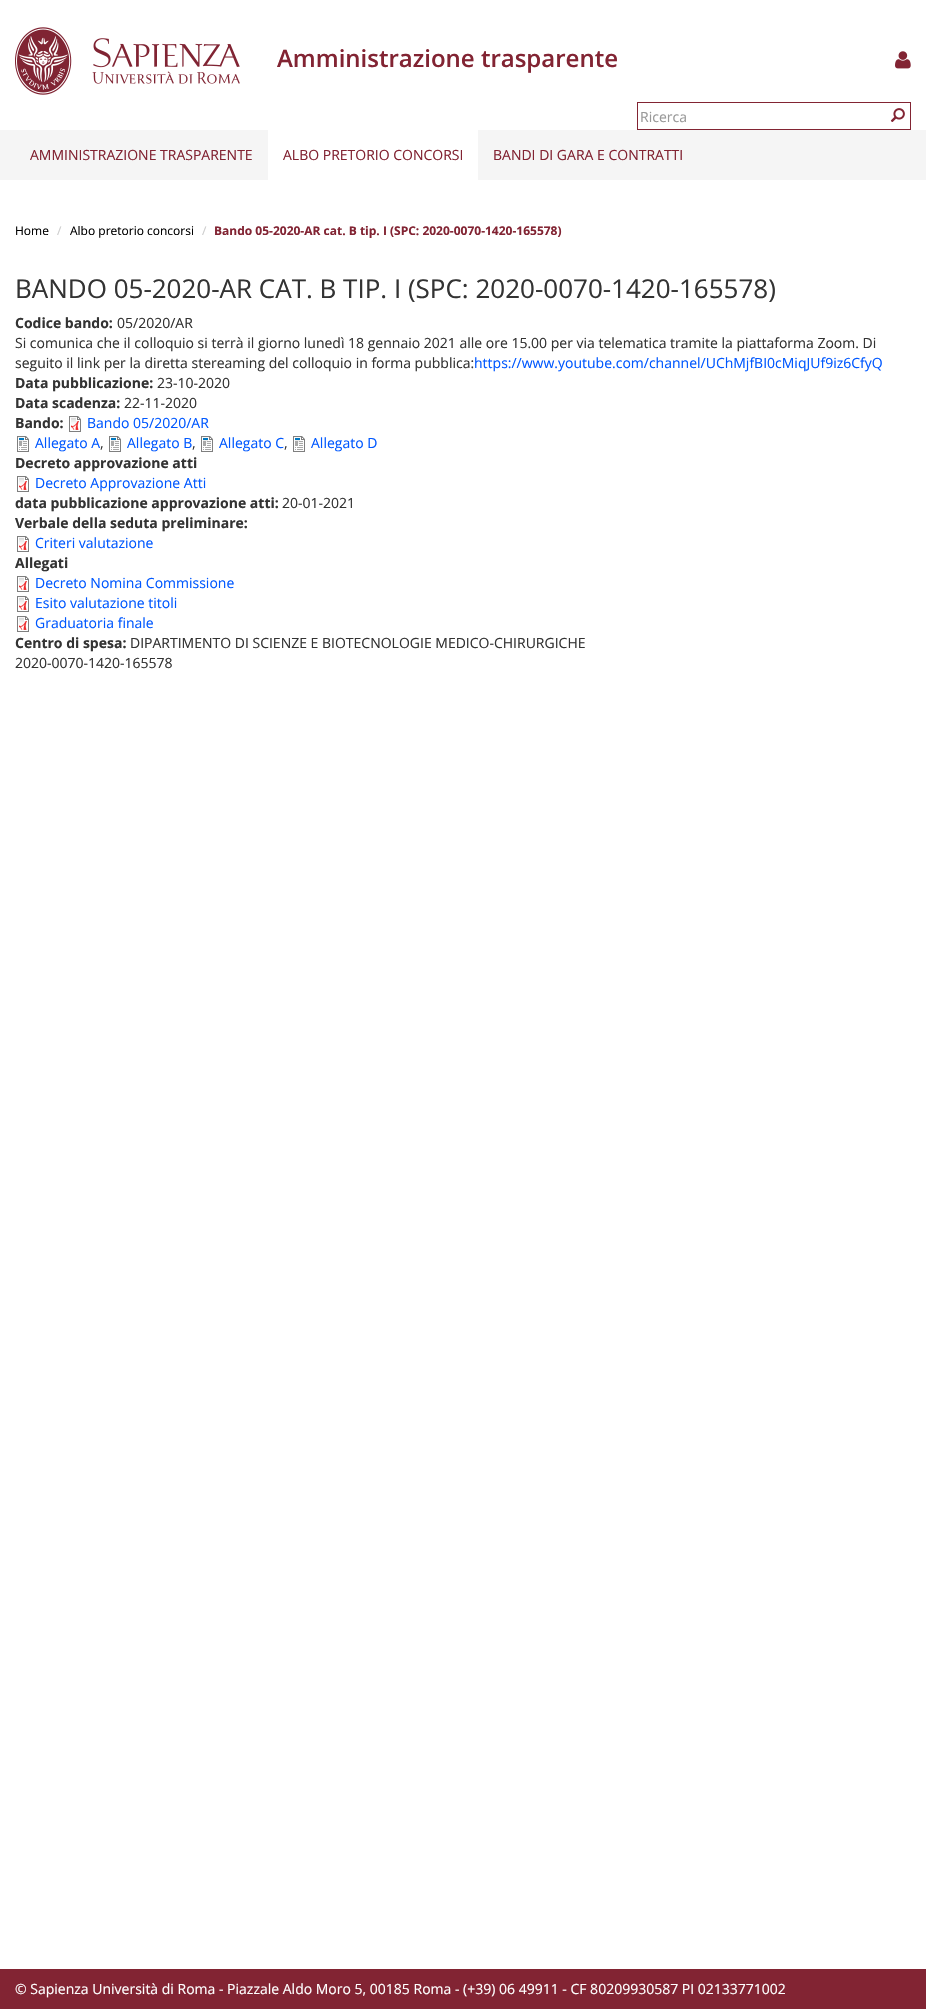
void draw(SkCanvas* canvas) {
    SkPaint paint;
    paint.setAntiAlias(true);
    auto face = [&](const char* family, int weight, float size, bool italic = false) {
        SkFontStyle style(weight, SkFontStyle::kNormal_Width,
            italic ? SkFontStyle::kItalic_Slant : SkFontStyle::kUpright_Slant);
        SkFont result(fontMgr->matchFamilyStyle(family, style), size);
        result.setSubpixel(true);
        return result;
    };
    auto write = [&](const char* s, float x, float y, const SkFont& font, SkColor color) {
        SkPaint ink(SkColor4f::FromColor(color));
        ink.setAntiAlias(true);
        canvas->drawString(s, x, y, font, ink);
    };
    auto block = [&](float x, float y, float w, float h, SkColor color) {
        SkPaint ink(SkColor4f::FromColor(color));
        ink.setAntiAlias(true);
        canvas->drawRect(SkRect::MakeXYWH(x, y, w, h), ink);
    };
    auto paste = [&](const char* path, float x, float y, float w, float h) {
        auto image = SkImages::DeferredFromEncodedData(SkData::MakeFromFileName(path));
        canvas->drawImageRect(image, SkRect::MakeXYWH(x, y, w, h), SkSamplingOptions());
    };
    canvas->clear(SK_ColorWHITE);
    paste("pic1.png", 15, 27, 225, 68);
    auto kFont1 = face("Open Sans", 600, 24);
    write("Amministrazione trasparente", 277, 67, kFont1, SkColorSetRGB(130, 36, 51));
    paste("pic2.png", 895, 51, 16, 18);
    block(637, 102, 274, 1, SkColorSetRGB(130, 36, 51));
    block(637, 129, 250, 1, SkColorSetRGB(130, 36, 51));
    block(637, 102, 1, 28, SkColorSetRGB(130, 36, 51));
    auto kFont2 = face("Open Sans", 400, 14);
    write("Ricerca", 640, 122, kFont2, SkColorSetRGB(153, 153, 153));
    block(910, 102, 1, 28, SkColorSetRGB(130, 36, 51));
    block(886, 129, 25, 1, SkColorSetRGB(130, 36, 51));
    paste("pic3.png", 890, 108, 15, 14);
    block(0, 130, 926, 50, SkColorSetRGB(245, 245, 245));
    write("AMMINISTRAZIONE TRASPARENTE", 30, 160, kFont2, SkColorSetRGB(130, 36, 51));
    block(268, 130, 210, 50, SK_ColorWHITE);
    write("ALBO PRETORIO CONCORSI", 283, 160, kFont2, SkColorSetRGB(130, 36, 51));
    write("BANDI DI GARA E CONTRATTI", 493, 160, kFont2, SkColorSetRGB(130, 36, 51));
    auto kFont3 = face("Open Sans", 400, 12);
    write("Home", 15, 235, kFont3, SK_ColorBLACK);
    write("/", 57, 235, kFont3, SkColorSetRGB(204, 204, 204));
    write("Albo pretorio concorsi", 70, 235, kFont3, SK_ColorBLACK);
    write("/", 202, 235, kFont3, SkColorSetRGB(204, 204, 204));
    auto kFont4 = face("Open Sans", 700, 12);
    write("Bando 05-2020-AR cat. B tip. I (SPC: 2020-0070-1420-165578)", 214, 235, kFont4, SkColorSetRGB(130, 36, 51));
    auto kFont5 = face("Open Sans", 400, 26);
    write("BANDO 05-2020-AR CAT. B TIP. I (SPC: 2020-0070-1420-165578)", 15, 298, kFont5, SkColorSetRGB(51, 51, 51));
    auto kFont6 = face("Open Sans", 700, 14);
    write("Codice bando:", 15, 328, kFont6, SkColorSetRGB(51, 51, 51));
    write("05/2020/AR", 117, 328, kFont2, SkColorSetRGB(51, 51, 51));
    write("Si comunica che il colloquio si terrà il giorno lunedì 18 gennaio 2021 alle ore 15.00 per via telematica tramite la piattaforma Zoom. Di", 15, 348, kFont2, SkColorSetRGB(51, 51, 51));
    write("seguito il link per la diretta stereaming del colloquio in forma pubblica:", 15, 368, kFont2, SkColorSetRGB(51, 51, 51));
    write("https://www.youtube.com/channel/UChMjfBI0cMiqJUf9iz6CfyQ", 474, 368, kFont2, SkColorSetRGB(0, 88, 255));
    write("Data pubblicazione:", 15, 388, kFont6, SkColorSetRGB(51, 51, 51));
    write("23-10-2020", 157, 388, kFont2, SkColorSetRGB(51, 51, 51));
    write("Data scadenza:", 15, 408, kFont6, SkColorSetRGB(51, 51, 51));
    write("22-11-2020", 124, 408, kFont2, SkColorSetRGB(51, 51, 51));
    write("Bando:", 15, 428, kFont6, SkColorSetRGB(51, 51, 51));
    paste("pic4.png", 69, 416, 12, 16);
    write("Bando 05/2020/AR", 87, 428, kFont2, SkColorSetRGB(0, 88, 255));
    paste("pic5.png", 17, 436, 12, 16);
    write("Allegato A", 35, 448, kFont2, SkColorSetRGB(0, 88, 255));
    write(",", 100, 448, kFont2, SkColorSetRGB(51, 51, 51));
    paste("pic5.png", 109, 436, 12, 16);
    write("Allegato B", 127, 448, kFont2, SkColorSetRGB(0, 88, 255));
    write(",", 192, 448, kFont2, SkColorSetRGB(51, 51, 51));
    paste("pic5.png", 201, 436, 12, 16);
    write("Allegato C", 219, 448, kFont2, SkColorSetRGB(0, 88, 255));
    write(",", 284, 448, kFont2, SkColorSetRGB(51, 51, 51));
    paste("pic5.png", 293, 436, 12, 16);
    write("Allegato D", 311, 448, kFont2, SkColorSetRGB(0, 88, 255));
    write("Decreto approvazione atti", 15, 468, kFont6, SkColorSetRGB(51, 51, 51));
    paste("pic4.png", 17, 476, 12, 16);
    write("Decreto Approvazione Atti", 35, 488, kFont2, SkColorSetRGB(0, 88, 255));
    write("data pubblicazione approvazione atti:", 15, 508, kFont6, SkColorSetRGB(51, 51, 51));
    write("20-01-2021", 282, 508, kFont2, SkColorSetRGB(51, 51, 51));
    write("Verbale della seduta preliminare:", 15, 528, kFont6, SkColorSetRGB(51, 51, 51));
    paste("pic4.png", 17, 536, 12, 16);
    write("Criteri valutazione", 35, 548, kFont2, SkColorSetRGB(0, 88, 255));
    write("Allegati", 15, 568, kFont6, SkColorSetRGB(51, 51, 51));
    paste("pic4.png", 17, 576, 12, 16);
    write("Decreto Nomina Commissione", 35, 588, kFont2, SkColorSetRGB(0, 88, 255));
    paste("pic4.png", 17, 596, 12, 16);
    write("Esito valutazione titoli", 35, 608, kFont2, SkColorSetRGB(0, 88, 255));
    paste("pic4.png", 17, 616, 12, 16);
    write("Graduatoria finale", 35, 628, kFont2, SkColorSetRGB(0, 88, 255));
    write("Centro di spesa:", 15, 648, kFont6, SkColorSetRGB(51, 51, 51));
    write("DIPARTIMENTO DI SCIENZE E BIOTECNOLOGIE MEDICO-CHIRURGICHE", 130, 648, kFont2, SkColorSetRGB(51, 51, 51));
    write("2020-0070-1420-165578", 15, 668, kFont2, SkColorSetRGB(51, 51, 51));
    block(0, 1969, 926, 40, SkColorSetRGB(130, 36, 51));
    write("© Sapienza Università di Roma - Piazzale Aldo Moro 5, 00185 Roma - (+39) 06 49911 - CF 80209930587 PI 02133771002", 15, 1994, kFont2, SK_ColorWHITE);
}
